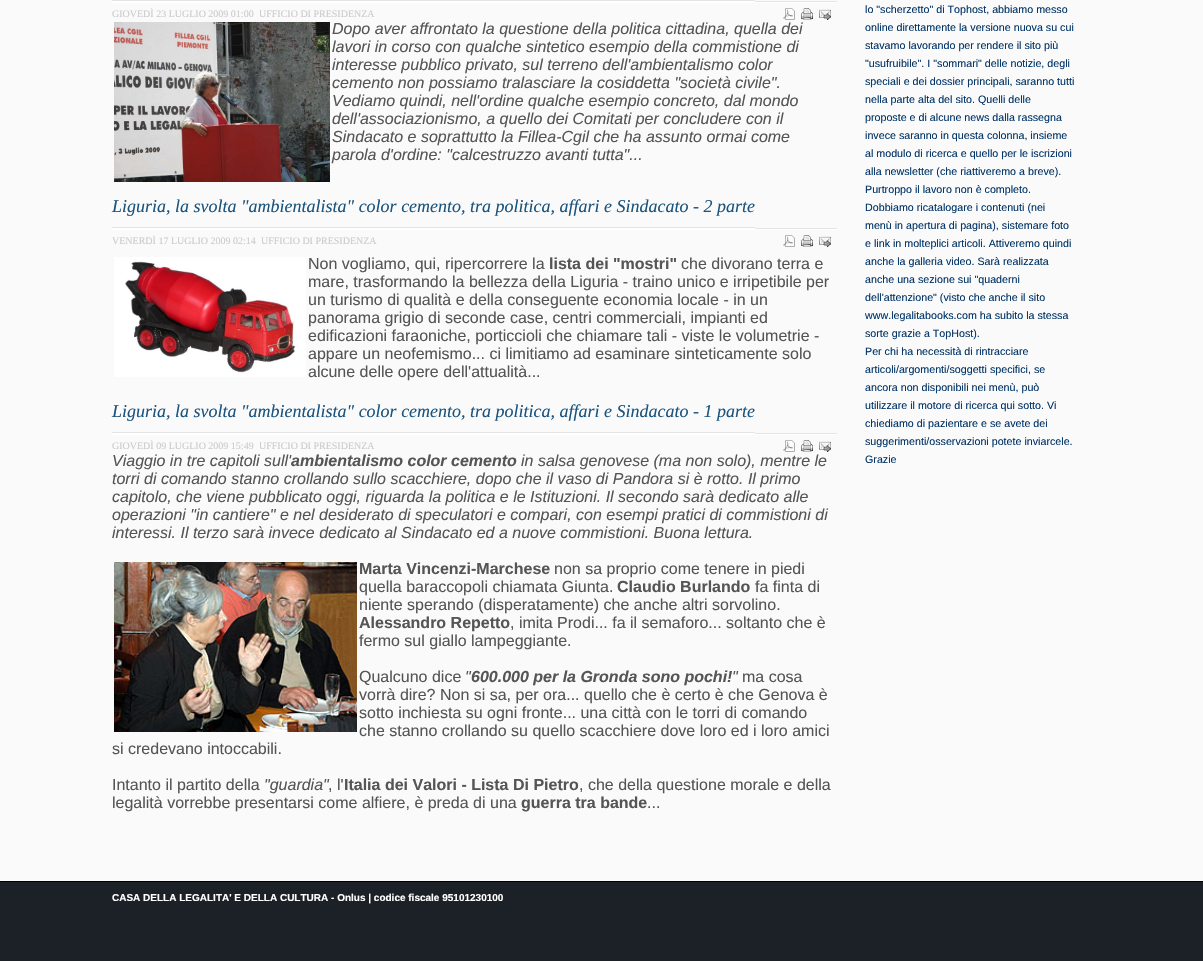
void draw(SkCanvas* canvas) {
    SkPaint paint;
    paint.setAntiAlias(true);
    auto face = [&](const char* family, int weight, float size, bool italic = false) {
        SkFontStyle style(weight, SkFontStyle::kNormal_Width,
            italic ? SkFontStyle::kItalic_Slant : SkFontStyle::kUpright_Slant);
        SkFont result(fontMgr->matchFamilyStyle(family, style), size);
        result.setSubpixel(true);
        return result;
    };
    auto write = [&](const char* s, float x, float y, const SkFont& font, SkColor color) {
        SkPaint ink(SkColor4f::FromColor(color));
        ink.setAntiAlias(true);
        canvas->drawString(s, x, y, font, ink);
    };
    auto block = [&](float x, float y, float w, float h, SkColor color) {
        SkPaint ink(SkColor4f::FromColor(color));
        ink.setAntiAlias(true);
        canvas->drawRect(SkRect::MakeXYWH(x, y, w, h), ink);
    };
    auto paste = [&](const char* path, float x, float y, float w, float h) {
        auto image = SkImages::DeferredFromEncodedData(SkData::MakeFromFileName(path));
        canvas->drawImageRect(image, SkRect::MakeXYWH(x, y, w, h), SkSamplingOptions());
    };
    canvas->clear(SkColorSetRGB(250, 250, 250));
    paste("pic1.png", 112, 1, 725, 2);
    paste("pic2.png", 112, 0, 643, 2);
    auto kFont1 = face("Liberation Serif", 400, 10);
    write("GIOVEDÌ 23 LUGLIO 2009 01:00", 112, 17, kFont1, SkColorSetRGB(204, 204, 204));
    write("UFFICIO DI PRESIDENZA", 259, 17, kFont1, SkColorSetRGB(204, 204, 204));
    paste("pic3.png", 783, 8, 12, 12);
    paste("pic4.png", 801, 8, 12, 12);
    paste("pic5.png", 819, 9, 12, 11);
    paste("pic6.png", 114, 22, 216, 160);
    auto kFont2 = face("Liberation Sans", 400, 16, true);
    write("Dopo aver affrontato la questione della politica cittadina, quella dei", 332, 34, kFont2, SkColorSetRGB(85, 85, 85));
    write("lavori in corso con qualche sintetico esempio della commistione di", 332, 52, kFont2, SkColorSetRGB(85, 85, 85));
    write("interesse pubblico privato, sul terreno dell'ambientalismo color", 332, 70, kFont2, SkColorSetRGB(85, 85, 85));
    write("cemento non possiamo tralasciare la cosiddetta \"società civile\".", 332, 88, kFont2, SkColorSetRGB(85, 85, 85));
    write("Vediamo quindi, nell'ordine qualche esempio concreto, dal mondo", 332, 106, kFont2, SkColorSetRGB(85, 85, 85));
    write("dell'associazionismo, a quello dei Comitati per concludere con il", 332, 124, kFont2, SkColorSetRGB(85, 85, 85));
    write("Sindacato e soprattutto la Fillea-Cgil che ha assunto ormai come", 332, 142, kFont2, SkColorSetRGB(85, 85, 85));
    write("parola d'ordine: \"calcestruzzo avanti tutta\"...", 332, 160, kFont2, SkColorSetRGB(85, 85, 85));
    paste("pic1.png", 112, 228, 725, 2);
    auto kFont3 = face("Liberation Serif", 400, 18, true);
    write("Liguria, la svolta \"ambientalista\" color cemento, tra politica, affari e Sindacato - 2 parte", 112, 212, kFont3, SkColorSetRGB(27, 84, 126));
    paste("pic2.png", 112, 227, 643, 2);
    write("VENERDÌ 17 LUGLIO 2009 02:14", 112, 244, kFont1, SkColorSetRGB(204, 204, 204));
    write("UFFICIO DI PRESIDENZA", 261, 244, kFont1, SkColorSetRGB(204, 204, 204));
    paste("pic3.png", 783, 235, 12, 12);
    paste("pic4.png", 801, 235, 12, 12);
    paste("pic5.png", 819, 236, 12, 11);
    paste("pic7.png", 114, 257, 192, 120);
    auto kFont4 = face("Liberation Sans", 400, 16);
    write("Non vogliamo, qui, ripercorrere la", 308, 269, kFont4, SkColorSetRGB(85, 85, 85));
    auto kFont5 = face("Liberation Sans", 700, 16);
    write("lista dei \"mostri\"", 549, 269, kFont5, SkColorSetRGB(85, 85, 85));
    write("che divorano terra e", 681, 269, kFont4, SkColorSetRGB(85, 85, 85));
    write("mare, trasformando la bellezza della Liguria - traino unico e irripetibile per", 308, 287, kFont4, SkColorSetRGB(85, 85, 85));
    write("un turismo di qualità e della conseguente economia locale - in un", 308, 305, kFont4, SkColorSetRGB(85, 85, 85));
    write("panorama grigio di seconde case, centri commerciali, impianti ed", 308, 323, kFont4, SkColorSetRGB(85, 85, 85));
    write("edificazioni faraoniche, porticcioli che chiamare tali - viste le volumetrie -", 308, 341, kFont4, SkColorSetRGB(85, 85, 85));
    write("appare un neofemismo... ci limitiamo ad esaminare sinteticamente solo", 308, 359, kFont4, SkColorSetRGB(85, 85, 85));
    write("alcune delle opere dell'attualità...", 308, 377, kFont4, SkColorSetRGB(85, 85, 85));
    paste("pic1.png", 112, 433, 725, 2);
    write("Liguria, la svolta \"ambientalista\" color cemento, tra politica, affari e Sindacato - 1 parte", 112, 417, kFont3, SkColorSetRGB(27, 84, 126));
    paste("pic2.png", 112, 432, 643, 2);
    write("GIOVEDÌ 09 LUGLIO 2009 15:49", 112, 449, kFont1, SkColorSetRGB(204, 204, 204));
    write("UFFICIO DI PRESIDENZA", 259, 449, kFont1, SkColorSetRGB(204, 204, 204));
    paste("pic3.png", 783, 440, 12, 12);
    paste("pic4.png", 801, 440, 12, 12);
    paste("pic5.png", 819, 441, 12, 11);
    write("Viaggio in tre capitoli sull'", 112, 466, kFont2, SkColorSetRGB(85, 85, 85));
    auto kFont6 = face("Liberation Sans", 700, 16, true);
    write("ambientalismo color cemento", 291, 466, kFont6, SkColorSetRGB(85, 85, 85));
    write("in salsa genovese (ma non solo), mentre le", 521, 466, kFont2, SkColorSetRGB(85, 85, 85));
    write("torri di comando stanno crollando sullo scacchiere, dopo che il vaso di Pandora si è rotto. Il primo", 112, 484, kFont2, SkColorSetRGB(85, 85, 85));
    write("capitolo, che viene pubblicato oggi, riguarda la politica e le Istituzioni. Il secondo sarà dedicato alle", 112, 502, kFont2, SkColorSetRGB(85, 85, 85));
    write("operazioni \"in cantiere\" e nel desiderato di speculatori e compari, con esempi pratici di commistioni di", 112, 520, kFont2, SkColorSetRGB(85, 85, 85));
    write("interessi. Il terzo sarà invece dedicato al Sindacato ed a nuove commistioni. Buona lettura.", 112, 538, kFont2, SkColorSetRGB(85, 85, 85));
    paste("pic8.png", 114, 562, 243, 170);
    write("Marta Vincenzi-Marchese", 359, 574, kFont5, SkColorSetRGB(85, 85, 85));
    write("non sa proprio come tenere in piedi", 554, 574, kFont4, SkColorSetRGB(85, 85, 85));
    write("quella baraccopoli chiamata Giunta.", 359, 592, kFont4, SkColorSetRGB(85, 85, 85));
    write("Claudio Burlando", 617, 592, kFont5, SkColorSetRGB(85, 85, 85));
    write("fa finta di", 755, 592, kFont4, SkColorSetRGB(85, 85, 85));
    write("niente sperando (disperatamente) che anche altri sorvolino.", 359, 610, kFont4, SkColorSetRGB(85, 85, 85));
    write("Alessandro Repetto", 359, 628, kFont5, SkColorSetRGB(85, 85, 85));
    write(", imita Prodi... fa il semaforo... soltanto che è", 510, 628, kFont4, SkColorSetRGB(85, 85, 85));
    write("fermo sul giallo lampeggiante.", 359, 646, kFont4, SkColorSetRGB(85, 85, 85));
    write("Qualcuno dice", 359, 682, kFont4, SkColorSetRGB(85, 85, 85));
    write("\"", 465, 682, kFont2, SkColorSetRGB(85, 85, 85));
    write("600.000 per la Gronda sono pochi!", 471, 682, kFont6, SkColorSetRGB(85, 85, 85));
    write("\"", 732, 682, kFont2, SkColorSetRGB(85, 85, 85));
    write("ma cosa", 742, 682, kFont4, SkColorSetRGB(85, 85, 85));
    write("vorrà dire? Non si sa, per ora... quello che è certo è che Genova è", 359, 700, kFont4, SkColorSetRGB(85, 85, 85));
    write("sotto inchiesta su ogni fronte... una città con le torri di comando", 359, 718, kFont4, SkColorSetRGB(85, 85, 85));
    write("che stanno crollando su quello scacchiere dove loro ed i loro amici", 359, 736, kFont4, SkColorSetRGB(85, 85, 85));
    write("si credevano intoccabili.", 112, 754, kFont4, SkColorSetRGB(85, 85, 85));
    write("Intanto il partito della", 112, 790, kFont4, SkColorSetRGB(85, 85, 85));
    write("\"guardia\"", 264, 790, kFont2, SkColorSetRGB(85, 85, 85));
    write(", l'", 328, 790, kFont4, SkColorSetRGB(85, 85, 85));
    write("Italia dei Valori - Lista Di Pietro", 344, 790, kFont5, SkColorSetRGB(85, 85, 85));
    write(", che della questione morale e della", 579, 790, kFont4, SkColorSetRGB(85, 85, 85));
    write("legalità vorrebbe presentarsi come alfiere, è preda di una", 112, 808, kFont4, SkColorSetRGB(85, 85, 85));
    write("guerra tra bande", 521, 808, kFont5, SkColorSetRGB(85, 85, 85));
    write("...", 647, 808, kFont4, SkColorSetRGB(85, 85, 85));
    auto kFont7 = face("Liberation Sans", 400, 10.7f);
    write("lo \"scherzetto\" di Tophost, abbiamo messo", 865, 13, kFont7, SkColorSetRGB(0, 51, 102));
    write("online direttamente la versione nuova su cui", 865, 31, kFont7, SkColorSetRGB(0, 51, 102));
    write("stavamo lavorando per rendere il sito più", 865, 49, kFont7, SkColorSetRGB(0, 51, 102));
    write("\"usufruibile\". I \"sommari\" delle notizie, degli", 865, 67, kFont7, SkColorSetRGB(0, 51, 102));
    write("speciali e dei dossier principali, saranno tutti", 865, 85, kFont7, SkColorSetRGB(0, 51, 102));
    write("nella parte alta del sito. Quelli delle", 865, 103, kFont7, SkColorSetRGB(0, 51, 102));
    write("proposte e di alcune news dalla rassegna", 865, 121, kFont7, SkColorSetRGB(0, 51, 102));
    write("invece saranno in questa colonna, insieme", 865, 139, kFont7, SkColorSetRGB(0, 51, 102));
    write("al modulo di ricerca e quello per le iscrizioni", 865, 157, kFont7, SkColorSetRGB(0, 51, 102));
    write("alla newsletter (che riattiveremo a breve).", 865, 175, kFont7, SkColorSetRGB(0, 51, 102));
    write("Purtroppo il lavoro non è completo.", 865, 193, kFont7, SkColorSetRGB(0, 51, 102));
    write("Dobbiamo ricatalogare i contenuti (nei", 865, 211, kFont7, SkColorSetRGB(0, 51, 102));
    write("menù in apertura di pagina), sistemare foto", 865, 229, kFont7, SkColorSetRGB(0, 51, 102));
    write("e link in molteplici articoli. Attiveremo quindi", 865, 247, kFont7, SkColorSetRGB(0, 51, 102));
    write("anche la galleria video. Sarà realizzata", 865, 265, kFont7, SkColorSetRGB(0, 51, 102));
    write("anche una sezione sui \"quaderni", 865, 283, kFont7, SkColorSetRGB(0, 51, 102));
    write("dell'attenzione\" (visto che anche il sito", 865, 301, kFont7, SkColorSetRGB(0, 51, 102));
    write("www.legalitabooks.com ha subito la stessa", 865, 319, kFont7, SkColorSetRGB(0, 51, 102));
    write("sorte grazie a TopHost).", 865, 337, kFont7, SkColorSetRGB(0, 51, 102));
    write("Per chi ha necessità di rintracciare", 865, 355, kFont7, SkColorSetRGB(0, 51, 102));
    write("articoli/argomenti/soggetti specifici, se", 865, 373, kFont7, SkColorSetRGB(0, 51, 102));
    write("ancora non disponibili nei menù, può", 865, 391, kFont7, SkColorSetRGB(0, 51, 102));
    write("utilizzare il motore di ricerca qui sotto. Vi", 865, 409, kFont7, SkColorSetRGB(0, 51, 102));
    write("chiediamo di pazientare e se avete dei", 865, 427, kFont7, SkColorSetRGB(0, 51, 102));
    write("suggerimenti/osservazioni potete inviarcele.", 865, 445, kFont7, SkColorSetRGB(0, 51, 102));
    write("Grazie", 865, 463, kFont7, SkColorSetRGB(0, 51, 102));
    block(0, 882, 1203, 79, SkColorSetRGB(28, 33, 39));
    block(0, 881, 1203, 1, SK_ColorBLACK);
    auto kFont8 = face("Liberation Sans", 700, 10);
    write("CASA DELLA LEGALITA' E DELLA CULTURA - Onlus | codice fiscale 95101230100", 112, 901, kFont8, SK_ColorWHITE);
}
